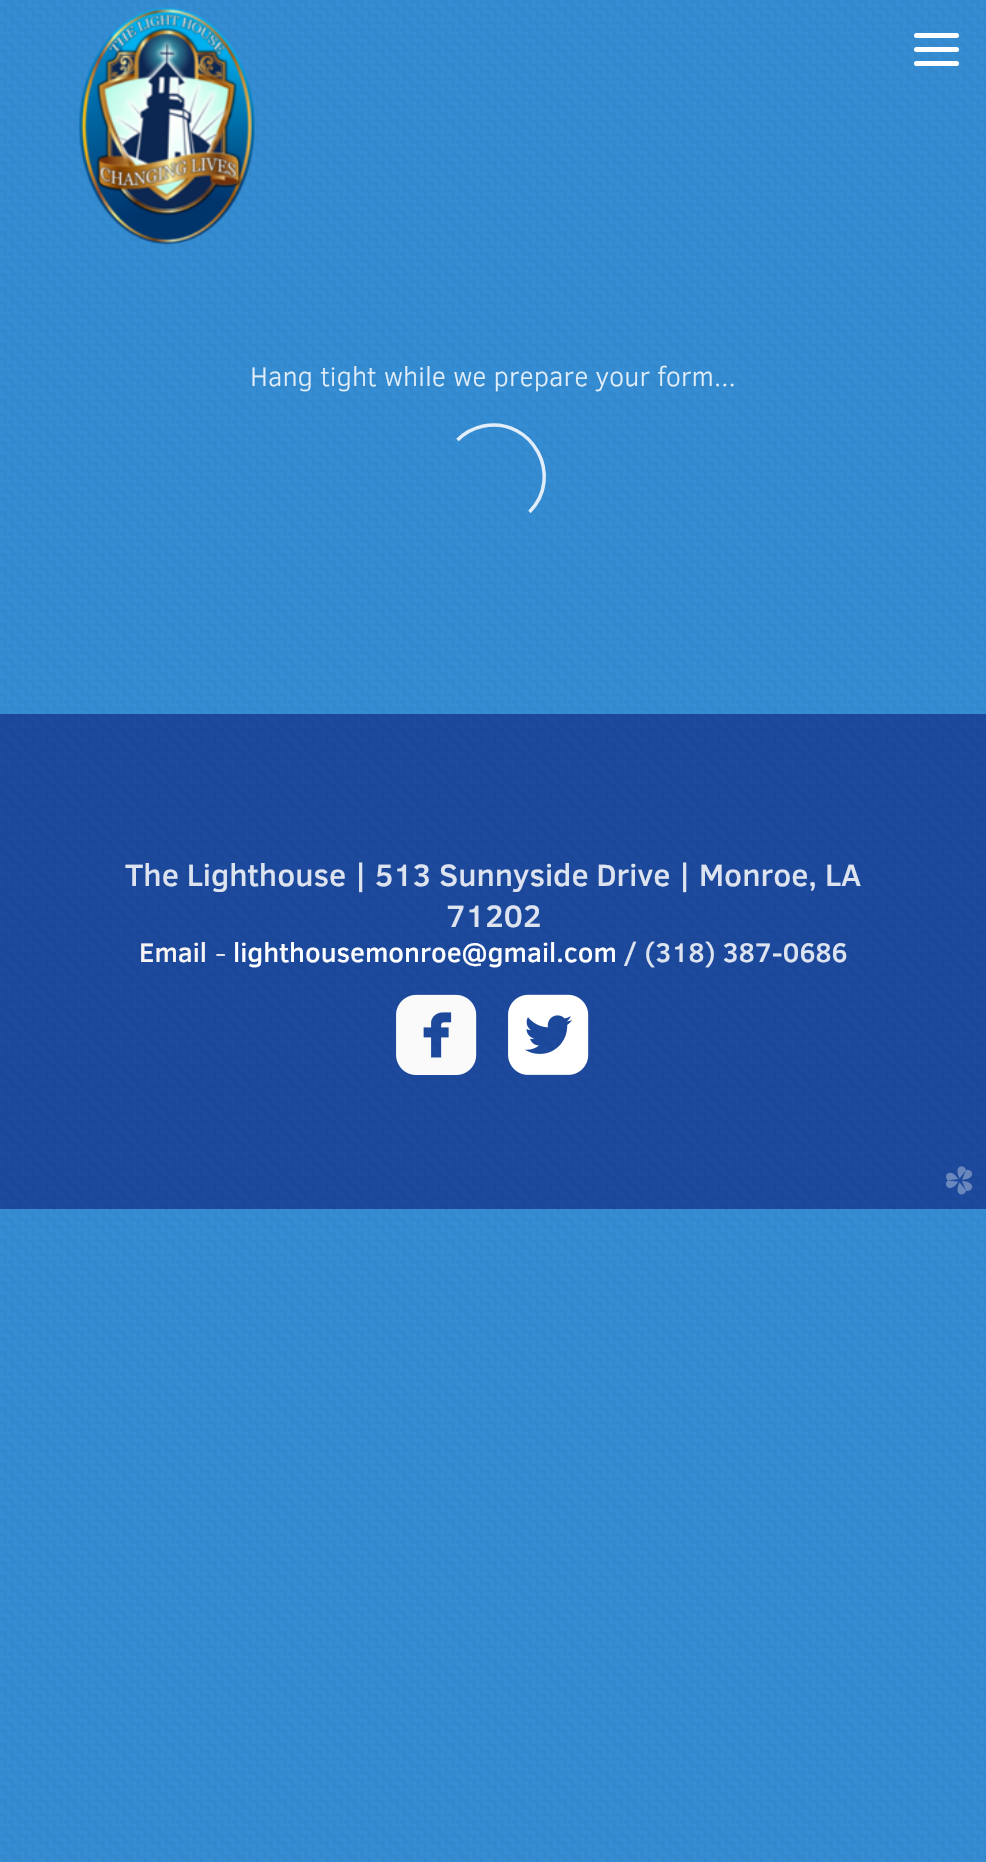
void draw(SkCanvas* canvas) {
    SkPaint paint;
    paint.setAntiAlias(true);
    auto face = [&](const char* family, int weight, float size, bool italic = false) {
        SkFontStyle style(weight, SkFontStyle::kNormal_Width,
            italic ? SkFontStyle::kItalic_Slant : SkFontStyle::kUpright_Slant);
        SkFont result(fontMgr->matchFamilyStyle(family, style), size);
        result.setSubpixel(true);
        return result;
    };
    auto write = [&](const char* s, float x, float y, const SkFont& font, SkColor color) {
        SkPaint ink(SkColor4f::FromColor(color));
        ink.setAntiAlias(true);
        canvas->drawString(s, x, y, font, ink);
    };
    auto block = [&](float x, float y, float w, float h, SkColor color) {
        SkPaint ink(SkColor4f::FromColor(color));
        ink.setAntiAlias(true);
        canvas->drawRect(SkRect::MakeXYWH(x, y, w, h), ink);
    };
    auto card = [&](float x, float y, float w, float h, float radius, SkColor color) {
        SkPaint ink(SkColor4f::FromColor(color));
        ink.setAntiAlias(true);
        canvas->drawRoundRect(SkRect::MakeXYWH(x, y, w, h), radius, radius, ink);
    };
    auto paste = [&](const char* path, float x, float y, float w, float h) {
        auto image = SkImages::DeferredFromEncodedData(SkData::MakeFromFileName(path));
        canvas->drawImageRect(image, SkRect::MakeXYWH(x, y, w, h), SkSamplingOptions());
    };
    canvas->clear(SkColorSetRGB(53, 141, 212));
    paste("pic1.png", 0, 1209, 986, 653);
    paste("pic3.png", 0, 0, 986, 714);
    card(914, 33, 45, 5, 2.5f, SK_ColorWHITE);
    card(914, 47, 45, 5, 2.5f, SK_ColorWHITE);
    card(914, 61, 45, 5, 2.5f, SK_ColorWHITE);
    paste("pic2.png", 78, 7, 177, 238);
    auto kFont1 = face("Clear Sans", 300, 27.4f);
    write("Hang tight while we prepare your form...", 250, 386, kFont1, SkColorSetRGB(225, 238, 249));
    paint.setStyle(SkPaint::kStroke_Style);
    paint.setStrokeWidth(3.5f);
    paint.setColor(SkColorSetRGB(225, 238, 249));
    canvas->drawPath(SkPathBuilder().moveTo(457.5f, 440).cubicTo(464.5f, 433, 474, 428, 483.5f, 426).cubicTo(532.5f, 416.5f, 564.5f, 476.5f, 529.5f, 512).detach(), paint);
    block(0, 714, 986, 495, SkColorSetRGB(29, 74, 158));
    paste("pic4.png", 0, 714, 986, 495);
    auto kFont2 = face("Clear Sans", 500, 31.5f);
    write("The Lighthouse | 513 Sunnyside Drive | Monroe, LA", 125, 886, kFont2, SkColorSetRGB(221, 228, 240));
    write("71202", 446, 927, kFont2, SkColorSetRGB(221, 228, 240));
    auto kFont3 = face("Clear Sans", 500, 27.4f);
    write("Email", 139, 962, kFont3, SkColorSetRGB(247, 244, 244));
    write("-", 215, 962, kFont1, SkColorSetRGB(247, 244, 244));
    write("lighthousemonroe@gmail.com", 233, 962, kFont3, SK_ColorWHITE);
    write("/ (318) 387-0686", 624, 962, kFont3, SkColorSetRGB(221, 228, 240));
    paste("pic5.png", 396, 994, 81, 81);
    paste("pic6.png", 508, 994, 81, 81);
    paste("pic7.png", 946, 1166, 27, 29);
}
